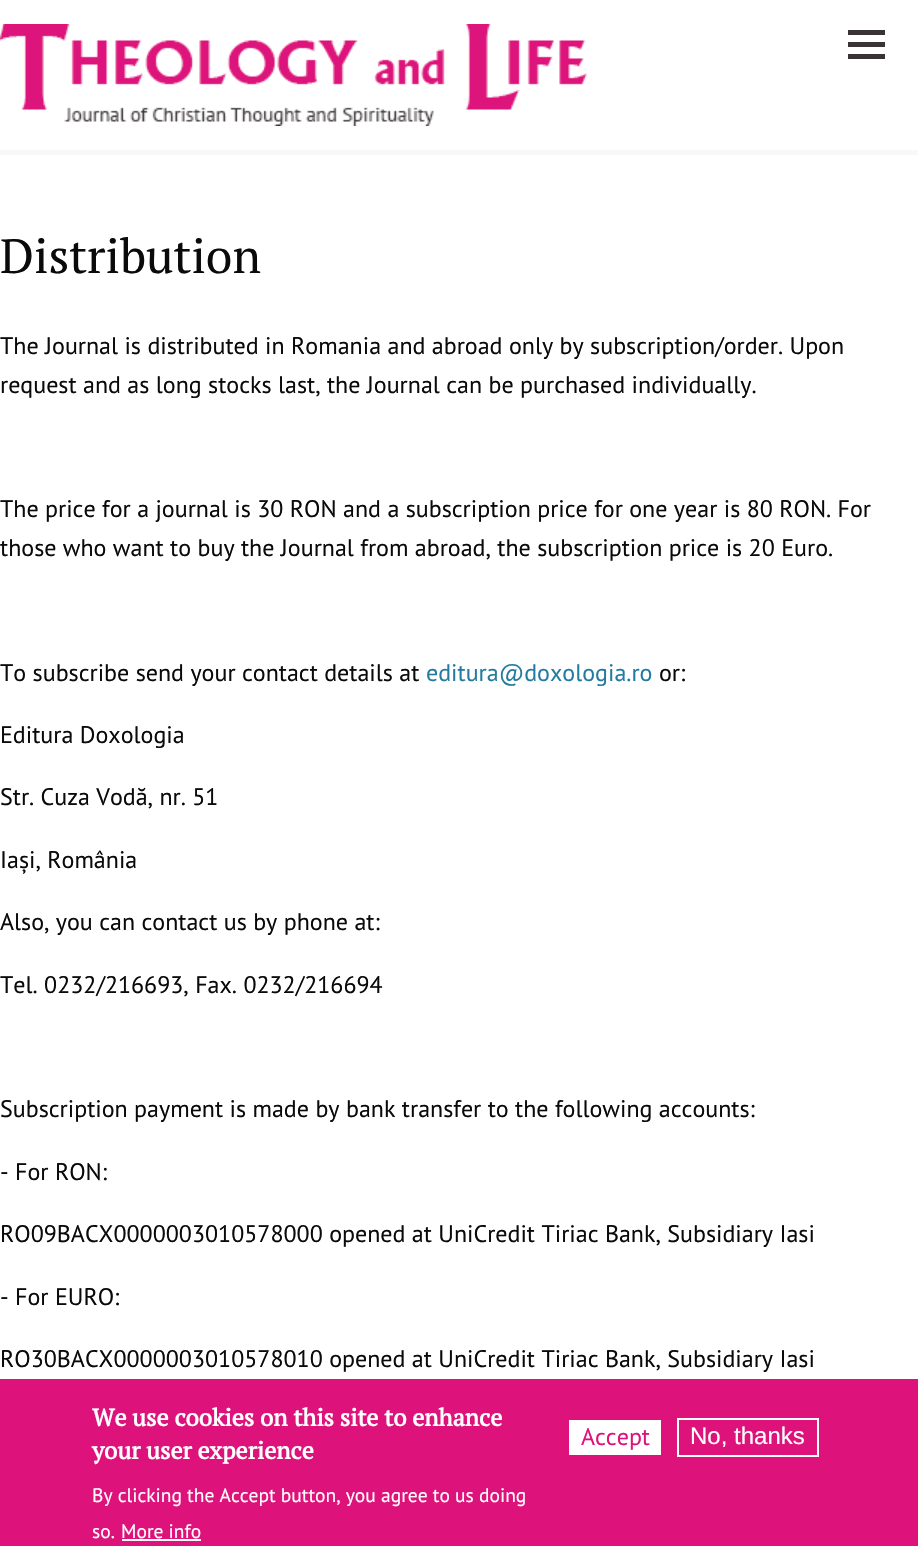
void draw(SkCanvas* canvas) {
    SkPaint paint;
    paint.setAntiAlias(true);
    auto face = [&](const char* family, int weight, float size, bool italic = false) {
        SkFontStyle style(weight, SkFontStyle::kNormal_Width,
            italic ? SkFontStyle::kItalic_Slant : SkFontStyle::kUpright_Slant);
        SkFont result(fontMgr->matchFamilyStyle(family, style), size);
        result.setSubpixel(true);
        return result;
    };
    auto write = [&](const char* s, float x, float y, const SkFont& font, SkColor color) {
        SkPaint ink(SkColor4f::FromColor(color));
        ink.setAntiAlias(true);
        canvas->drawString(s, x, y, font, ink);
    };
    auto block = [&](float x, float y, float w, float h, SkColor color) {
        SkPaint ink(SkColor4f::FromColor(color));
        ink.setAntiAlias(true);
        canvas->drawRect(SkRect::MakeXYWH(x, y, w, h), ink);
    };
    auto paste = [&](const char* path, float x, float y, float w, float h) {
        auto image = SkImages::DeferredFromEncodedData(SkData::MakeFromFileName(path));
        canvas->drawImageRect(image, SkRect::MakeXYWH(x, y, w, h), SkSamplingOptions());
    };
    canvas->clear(SK_ColorWHITE);
    block(0, 150, 918, 5, SkColorSetRGB(248, 248, 248));
    paste("pic1.png", 0, 24, 587, 102);
    block(848, 54, 37, 5, SkColorSetRGB(58, 51, 53));
    block(848, 42, 37, 5, SkColorSetRGB(58, 51, 53));
    block(848, 30, 37, 5, SkColorSetRGB(58, 51, 53));
    auto kFont1 = face("PT Serif", 400, 48);
    write("Distribution", 0, 273, kFont1, SkColorSetRGB(10, 10, 10));
    auto kFont2 = face("PT Sans", 400, 24);
    write("The Journal is distributed in Romania and abroad only by subscription/order. Upon", 0, 354, kFont2, SkColorSetRGB(10, 10, 10));
    write("request and as long stocks last, the Journal can be purchased individually.", 0, 393, kFont2, SkColorSetRGB(10, 10, 10));
    write("The price for a journal is 30 RON and a subscription price for one year is 80 RON. For", 0, 517, kFont2, SkColorSetRGB(10, 10, 10));
    write("those who want to buy the Journal from abroad, the subscription price is 20 Euro.", 0, 556, kFont2, SkColorSetRGB(10, 10, 10));
    write("To subscribe send your contact details at", 0, 681, kFont2, SkColorSetRGB(10, 10, 10));
    write("editura@doxologia.ro", 426, 681, kFont2, SkColorSetRGB(36, 123, 160));
    write("or:", 659, 681, kFont2, SkColorSetRGB(10, 10, 10));
    write("Editura Doxologia", 0, 743, kFont2, SkColorSetRGB(10, 10, 10));
    write("Str. Cuza Vodă, nr. 51", 0, 805, kFont2, SkColorSetRGB(10, 10, 10));
    write("Iași, România", 0, 868, kFont2, SkColorSetRGB(10, 10, 10));
    write("Also, you can contact us by phone at:", 0, 930, kFont2, SkColorSetRGB(10, 10, 10));
    write("Tel. 0232/216693, Fax. 0232/216694", 0, 993, kFont2, SkColorSetRGB(10, 10, 10));
    write("Subscription payment is made by bank transfer to the following accounts:", 0, 1117, kFont2, SkColorSetRGB(10, 10, 10));
    write("- For RON:", 0, 1180, kFont2, SkColorSetRGB(10, 10, 10));
    write("RO09BACX0000003010578000 opened at UniCredit Tiriac Bank, Subsidiary Iasi", 0, 1242, kFont2, SkColorSetRGB(10, 10, 10));
    write("- For EURO:", 0, 1305, kFont2, SkColorSetRGB(10, 10, 10));
    write("RO30BACX0000003010578010 opened at UniCredit Tiriac Bank, Subsidiary Iasi", 0, 1367, kFont2, SkColorSetRGB(10, 10, 10));
    block(0, 1379, 918, 167, SkColorSetRGB(221, 18, 123));
    auto kFont3 = face("PT Serif", 700, 24);
    write("We use cookies on this site to enhance", 92, 1426, kFont3, SK_ColorWHITE);
    write("your user experience", 92, 1459, kFont3, SK_ColorWHITE);
    auto kFont4 = face("PT Sans", 400, 19.5f);
    write("By clicking the Accept button, you agree to us doing", 92, 1502, kFont4, SK_ColorWHITE);
    write("so.", 92, 1538, kFont4, SK_ColorWHITE);
    write("More info", 121, 1538, kFont4, SK_ColorWHITE);
    block(122, 1539, 79, 2, SK_ColorWHITE);
    block(569, 1420, 92, 35, SK_ColorWHITE);
    write("Accept", 581, 1445, kFont2, SkColorSetRGB(221, 18, 123));
    paint.setStyle(SkPaint::kStroke_Style);
    paint.setStrokeWidth(2);
    paint.setColor(SK_ColorWHITE);
    canvas->drawRect(SkRect::MakeXYWH(678, 1419, 140, 37), paint);
    auto kFont5 = face("Liberation Sans", 400, 24);
    write("No, thanks", 690, 1444, kFont5, SK_ColorWHITE);
}
